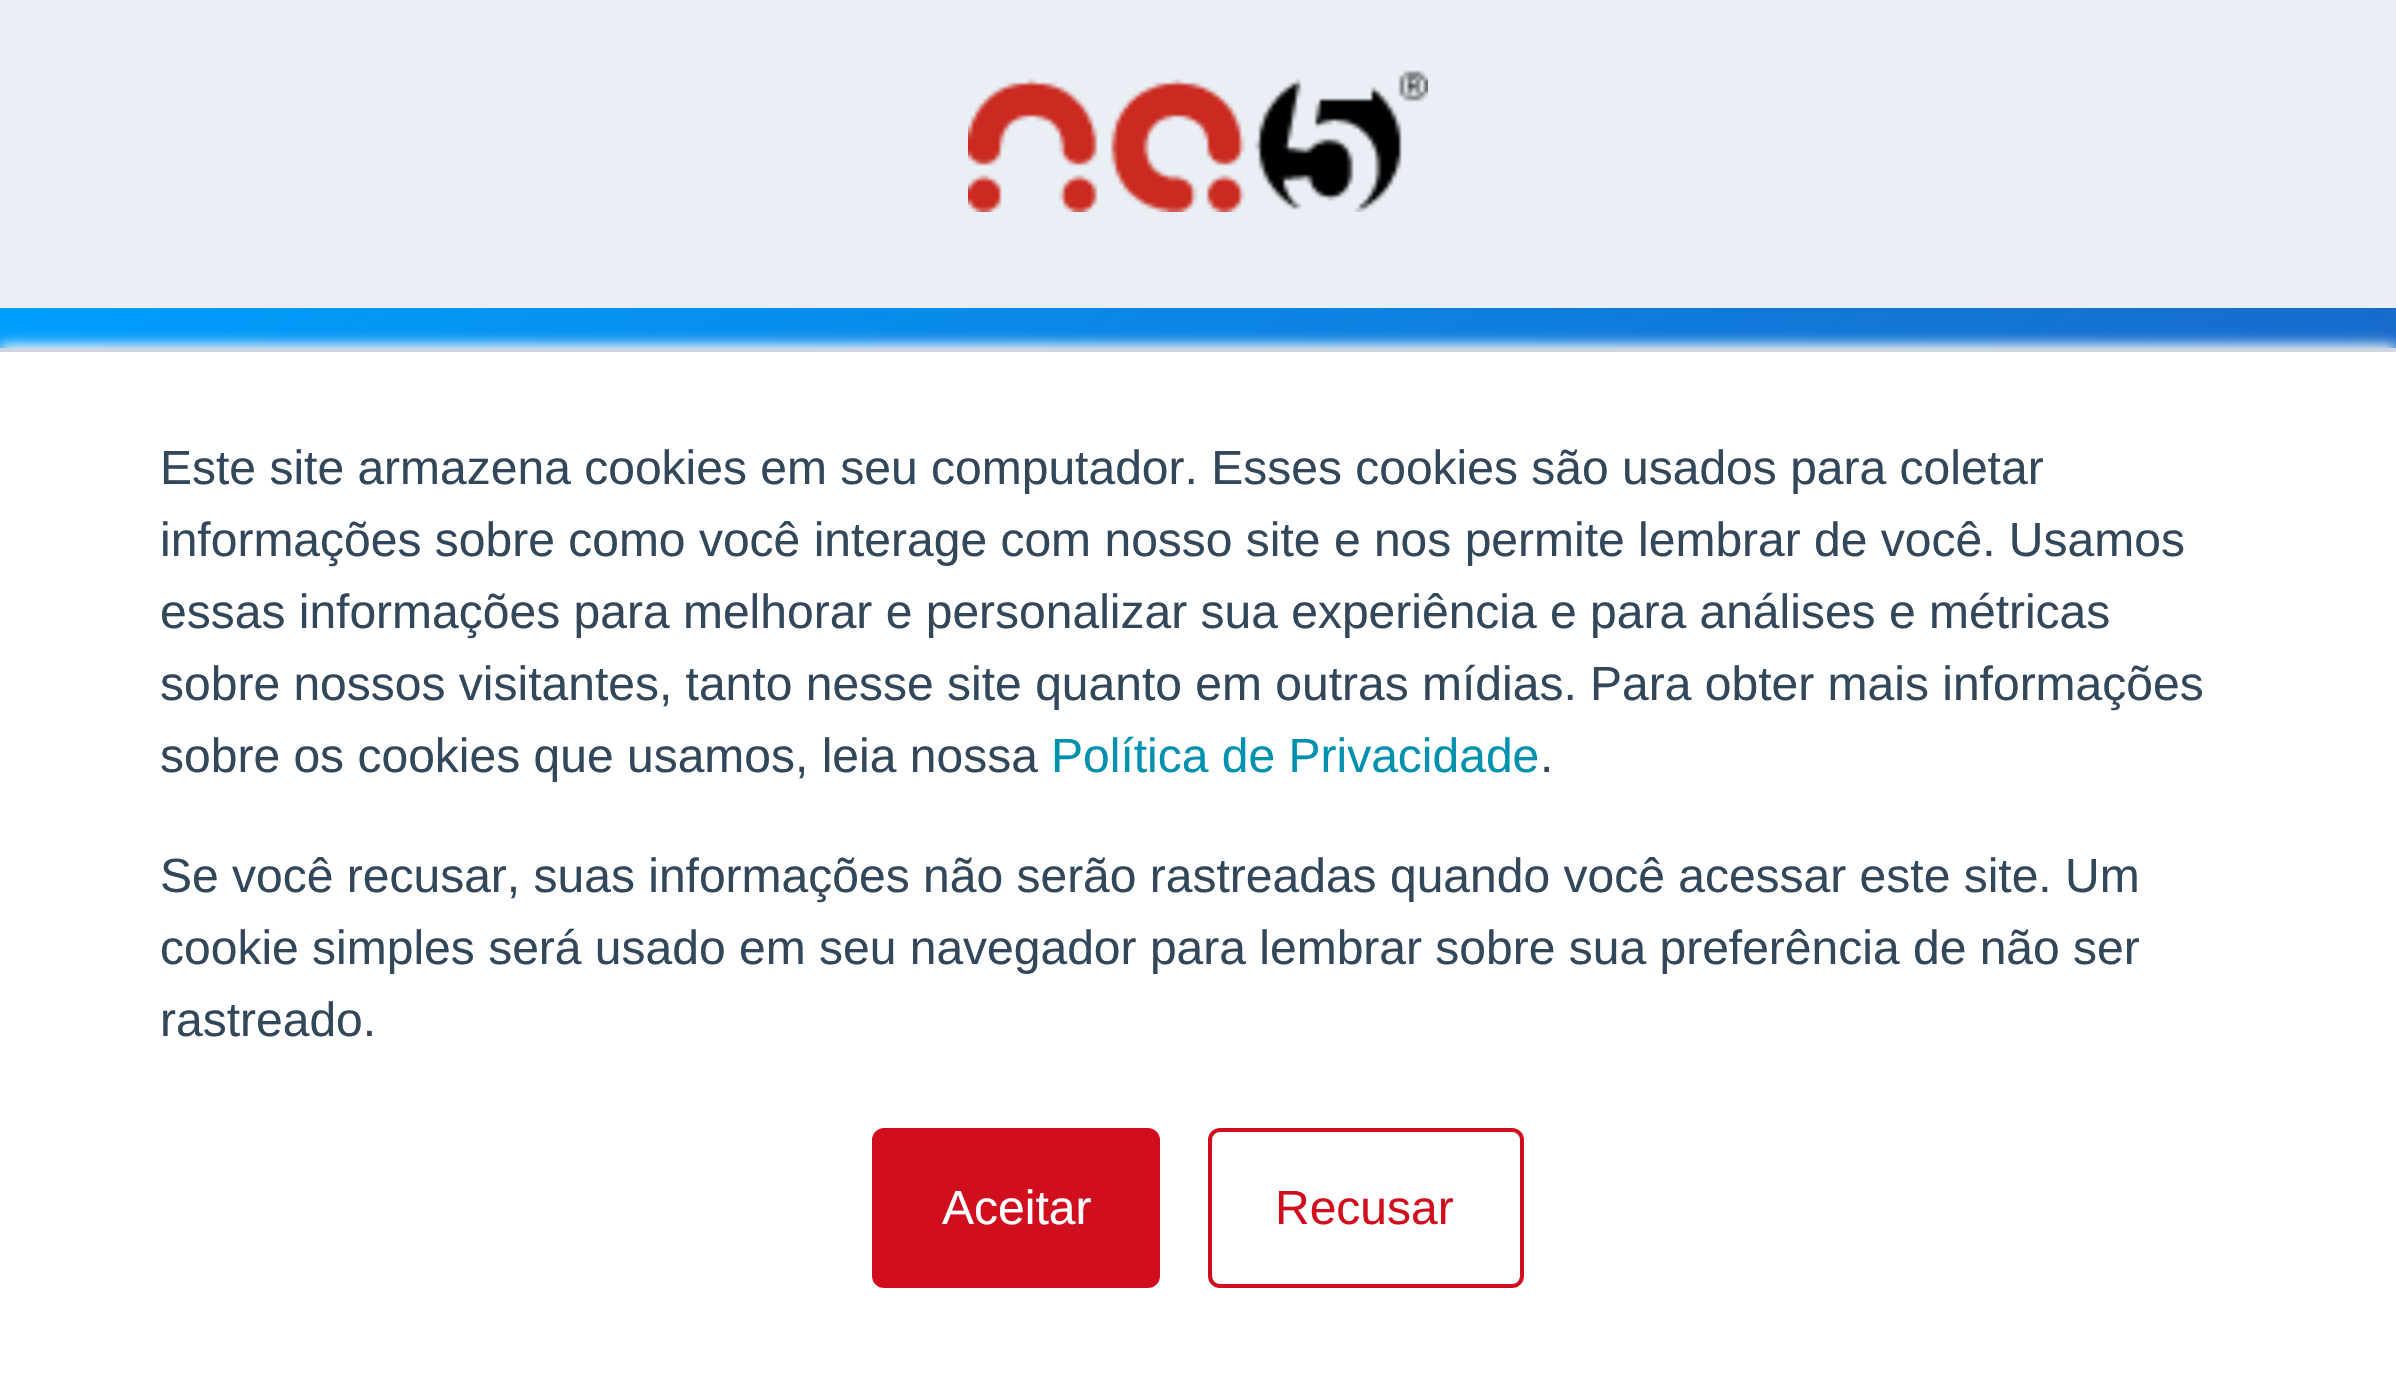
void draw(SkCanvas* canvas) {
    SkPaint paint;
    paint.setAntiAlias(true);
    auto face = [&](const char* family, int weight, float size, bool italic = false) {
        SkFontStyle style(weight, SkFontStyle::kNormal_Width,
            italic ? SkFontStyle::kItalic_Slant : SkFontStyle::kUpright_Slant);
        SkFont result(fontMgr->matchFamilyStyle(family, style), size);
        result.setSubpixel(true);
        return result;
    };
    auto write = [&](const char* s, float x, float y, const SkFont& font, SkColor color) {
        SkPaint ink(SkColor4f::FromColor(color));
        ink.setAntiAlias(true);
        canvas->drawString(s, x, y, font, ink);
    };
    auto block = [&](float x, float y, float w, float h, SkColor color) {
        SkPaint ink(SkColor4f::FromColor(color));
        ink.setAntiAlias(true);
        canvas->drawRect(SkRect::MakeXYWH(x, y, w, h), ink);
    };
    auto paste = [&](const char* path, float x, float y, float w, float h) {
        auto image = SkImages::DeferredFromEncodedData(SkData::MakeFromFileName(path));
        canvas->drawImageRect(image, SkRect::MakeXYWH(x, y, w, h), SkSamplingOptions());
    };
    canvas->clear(SkColorSetRGB(233, 239, 245));
    paste("pic1.png", 968, 70, 460, 142);
    {
        const SkColor colors[] = {SkColorSetRGB(0, 159, 253), SkColorSetRGB(45, 57, 156)};
        const float stops[] = {0, 1};
        const SkPoint ends[] = {{436, 10}, {1960, 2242}};
        paint.setShader(SkGradientShader::MakeLinear(ends, colors, stops, 2, SkTileMode::kClamp));
        paint.setAlpha(255);
    }
    canvas->drawRect(SkRect::MakeXYWH(0, 308, 2396, 40), paint);
    paint.setShader(nullptr);
    paint.setColor(SkColorSetRGB(234, 240, 246));
    paint.setMaskFilter(SkMaskFilter::MakeBlur(kNormal_SkBlurStyle, 6));
    canvas->drawRect(SkRect::MakeXYWH(0, 344, 2396, 1044), paint);
    paint.setMaskFilter(nullptr);
    block(0, 352, 2396, 1037, SK_ColorWHITE);
    block(0, 348, 2396, 4, SkColorSetRGB(203, 214, 226));
    auto kFont1 = face("Liberation Sans", 400, 48);
    write("Este site armazena cookies em seu computador. Esses cookies são usados para coletar", 160, 484, kFont1, SkColorSetRGB(51, 71, 91));
    write("informações sobre como você interage com nosso site e nos permite lembrar de você. Usamos", 160, 556, kFont1, SkColorSetRGB(51, 71, 91));
    write("essas informações para melhorar e personalizar sua experiência e para análises e métricas", 160, 628, kFont1, SkColorSetRGB(51, 71, 91));
    write("sobre nossos visitantes, tanto nesse site quanto em outras mídias. Para obter mais informações", 160, 700, kFont1, SkColorSetRGB(51, 71, 91));
    write("sobre os cookies que usamos, leia nossa", 160, 772, kFont1, SkColorSetRGB(51, 71, 91));
    write("Política de Privacidade", 1051, 772, kFont1, SkColorSetRGB(0, 145, 174));
    write(".", 1540, 772, kFont1, SkColorSetRGB(51, 71, 91));
    write("Se você recusar, suas informações não serão rastreadas quando você acessar este site. Um", 160, 892, kFont1, SkColorSetRGB(51, 71, 91));
    write("cookie simples será usado em seu navegador para lembrar sobre sua preferência de não ser", 160, 964, kFont1, SkColorSetRGB(51, 71, 91));
    write("rastreado.", 160, 1036, kFont1, SkColorSetRGB(51, 71, 91));
    paint.setColor(SkColorSetRGB(209, 14, 29));
    canvas->drawRoundRect(SkRect::MakeXYWH(874, 1130, 284, 156), 10, 10, paint);
    paint.setStyle(SkPaint::kStroke_Style);
    paint.setStrokeWidth(4);
    canvas->drawRoundRect(SkRect::MakeXYWH(874, 1130, 284, 156), 10, 10, paint);
    write("Aceitar", 942, 1224, kFont1, SK_ColorWHITE);
    canvas->drawRoundRect(SkRect::MakeXYWH(1210, 1130, 312, 156), 10, 10, paint);
    write("Recusar", 1275, 1224, kFont1, SkColorSetRGB(209, 14, 29));
}
